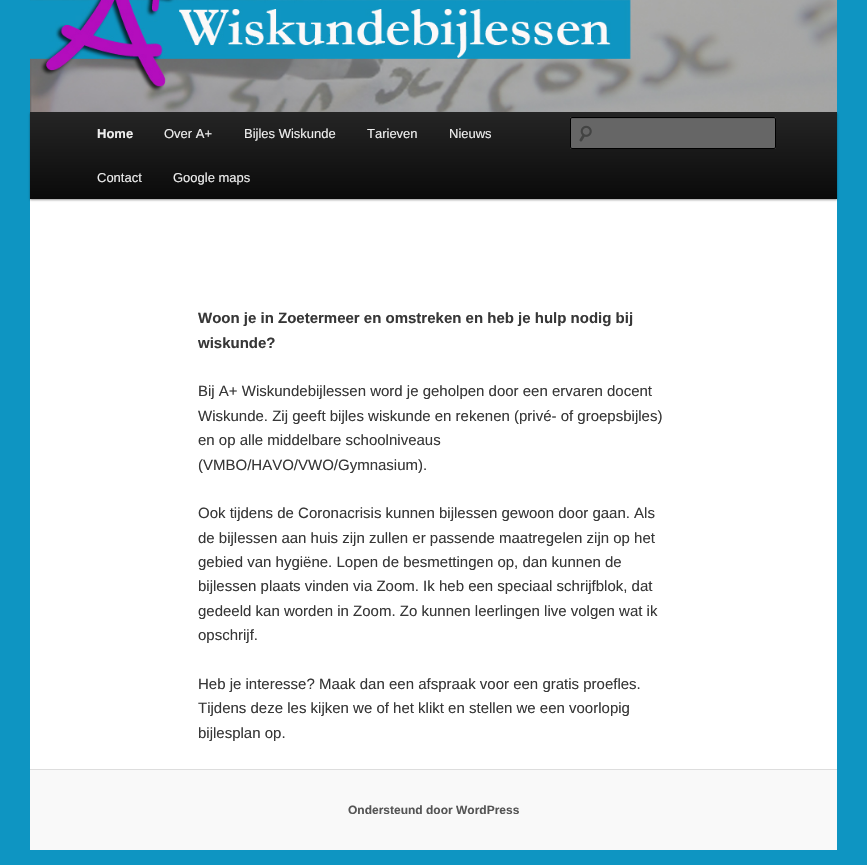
void draw(SkCanvas* canvas) {
    SkPaint paint;
    paint.setAntiAlias(true);
    auto face = [&](const char* family, int weight, float size, bool italic = false) {
        SkFontStyle style(weight, SkFontStyle::kNormal_Width,
            italic ? SkFontStyle::kItalic_Slant : SkFontStyle::kUpright_Slant);
        SkFont result(fontMgr->matchFamilyStyle(family, style), size);
        result.setSubpixel(true);
        return result;
    };
    auto write = [&](const char* s, float x, float y, const SkFont& font, SkColor color) {
        SkPaint ink(SkColor4f::FromColor(color));
        ink.setAntiAlias(true);
        canvas->drawString(s, x, y, font, ink);
    };
    auto block = [&](float x, float y, float w, float h, SkColor color) {
        SkPaint ink(SkColor4f::FromColor(color));
        ink.setAntiAlias(true);
        canvas->drawRect(SkRect::MakeXYWH(x, y, w, h), ink);
    };
    auto card = [&](float x, float y, float w, float h, float radius, SkColor color) {
        SkPaint ink(SkColor4f::FromColor(color));
        ink.setAntiAlias(true);
        canvas->drawRoundRect(SkRect::MakeXYWH(x, y, w, h), radius, radius, ink);
    };
    auto paste = [&](const char* path, float x, float y, float w, float h) {
        auto image = SkImages::DeferredFromEncodedData(SkData::MakeFromFileName(path));
        canvas->drawImageRect(image, SkRect::MakeXYWH(x, y, w, h), SkSamplingOptions());
    };
    canvas->clear(SkColorSetRGB(14, 149, 194));
    block(30, 199, 807, 570, SK_ColorWHITE);
    paint.setColor(SkColorSetARGB(102, 0, 0, 0));
    paint.setMaskFilter(SkMaskFilter::MakeBlur(kNormal_SkBlurStyle, 1));
    canvas->drawRect(SkRect::MakeXYWH(30, 113, 807, 87), paint);
    paint.setMaskFilter(nullptr);
    paste("pic1.png", 30, 0, 807, 112);
    {
        const SkColor colors[] = {SkColorSetRGB(37, 37, 37), SkColorSetRGB(10, 10, 10)};
        const float stops[] = {0, 1};
        const SkPoint ends[] = {{434, 112}, {434, 199}};
        paint.setShader(SkGradientShader::MakeLinear(ends, colors, stops, 2, SkTileMode::kClamp));
        paint.setAlpha(255);
    }
    canvas->drawRect(SkRect::MakeXYWH(30, 112, 807, 87), paint);
    auto kFont1 = face("Liberation Sans", 700, 13);
    write("Home", 97, 138, kFont1, SkColorSetRGB(238, 238, 238));
    auto kFont2 = face("Liberation Sans", 400, 13);
    write("Over A+", 164, 138, kFont2, SkColorSetRGB(238, 238, 238));
    write("Bijles Wiskunde", 244, 138, kFont2, SkColorSetRGB(238, 238, 238));
    write("Tarieven", 367, 138, kFont2, SkColorSetRGB(238, 238, 238));
    write("Nieuws", 449, 138, kFont2, SkColorSetRGB(238, 238, 238));
    write("Contact", 97, 182, kFont2, SkColorSetRGB(238, 238, 238));
    write("Google maps", 173, 182, kFont2, SkColorSetRGB(238, 238, 238));
    card(570, 117, 206, 32, 2, SkColorSetRGB(102, 102, 102));
    paste("pic2.png", 579, 125, 13, 17);
    paint.setShader(nullptr);
    paint.setColor(SkColorSetRGB(92, 92, 92));
    canvas->drawPath(SkPathBuilder().moveTo(572, 119).lineTo(775, 119).lineTo(775, 120).cubicTo(775, 119, 775, 118, 774, 118).lineTo(572, 118).lineTo(571, 118).lineTo(571, 120).cubicTo(571, 119, 571, 119, 572, 119).close().detach(), paint);
    paint.setStyle(SkPaint::kStroke_Style);
    paint.setStrokeWidth(1);
    paint.setColor(SK_ColorBLACK);
    canvas->drawRoundRect(SkRect::MakeXYWH(570.5f, 117.5f, 205, 31), 1.5f, 1.5f, paint);
    auto kFont3 = face("Liberation Sans", 700, 15);
    write("Woon je in Zoetermeer en omstreken en heb je hulp nodig bij", 198, 323, kFont3, SkColorSetRGB(55, 55, 55));
    write("wiskunde?", 198, 348, kFont3, SkColorSetRGB(55, 55, 55));
    auto kFont4 = face("Liberation Sans", 400, 15);
    write("Bij A+ Wiskundebijlessen word je geholpen door een ervaren docent", 198, 396, kFont4, SkColorSetRGB(55, 55, 55));
    write("Wiskunde. Zij geeft bijles wiskunde en rekenen (privé- of groepsbijles)", 198, 421, kFont4, SkColorSetRGB(55, 55, 55));
    write("en op alle middelbare schoolniveaus", 198, 445, kFont4, SkColorSetRGB(55, 55, 55));
    write("(VMBO/HAVO/VWO/Gymnasium).", 198, 470, kFont4, SkColorSetRGB(55, 55, 55));
    write("Ook tijdens de Coronacrisis kunnen bijlessen gewoon door gaan. Als", 198, 518, kFont4, SkColorSetRGB(55, 55, 55));
    write("de bijlessen aan huis zijn zullen er passende maatregelen zijn op het", 198, 543, kFont4, SkColorSetRGB(55, 55, 55));
    write("gebied van hygiëne. Lopen de besmettingen op, dan kunnen de", 198, 567, kFont4, SkColorSetRGB(55, 55, 55));
    write("bijlessen plaats vinden via Zoom. Ik heb een speciaal schrijfblok, dat", 198, 591, kFont4, SkColorSetRGB(55, 55, 55));
    write("gedeeld kan worden in Zoom. Zo kunnen leerlingen live volgen wat ik", 198, 616, kFont4, SkColorSetRGB(55, 55, 55));
    write("opschrijf.", 198, 640, kFont4, SkColorSetRGB(55, 55, 55));
    write("Heb je interesse? Maak dan een afspraak voor een gratis proefles.", 198, 689, kFont4, SkColorSetRGB(55, 55, 55));
    write("Tijdens deze les kijken we of het klikt en stellen we een voorlopig", 198, 713, kFont4, SkColorSetRGB(55, 55, 55));
    write("bijlesplan op.", 198, 738, kFont4, SkColorSetRGB(55, 55, 55));
    block(30, 770, 807, 80, SkColorSetRGB(249, 249, 249));
    block(30, 769, 807, 1, SkColorSetRGB(221, 221, 221));
    auto kFont5 = face("Liberation Sans", 700, 12);
    write("Ondersteund door WordPress", 348, 814, kFont5, SkColorSetRGB(85, 85, 85));
}
